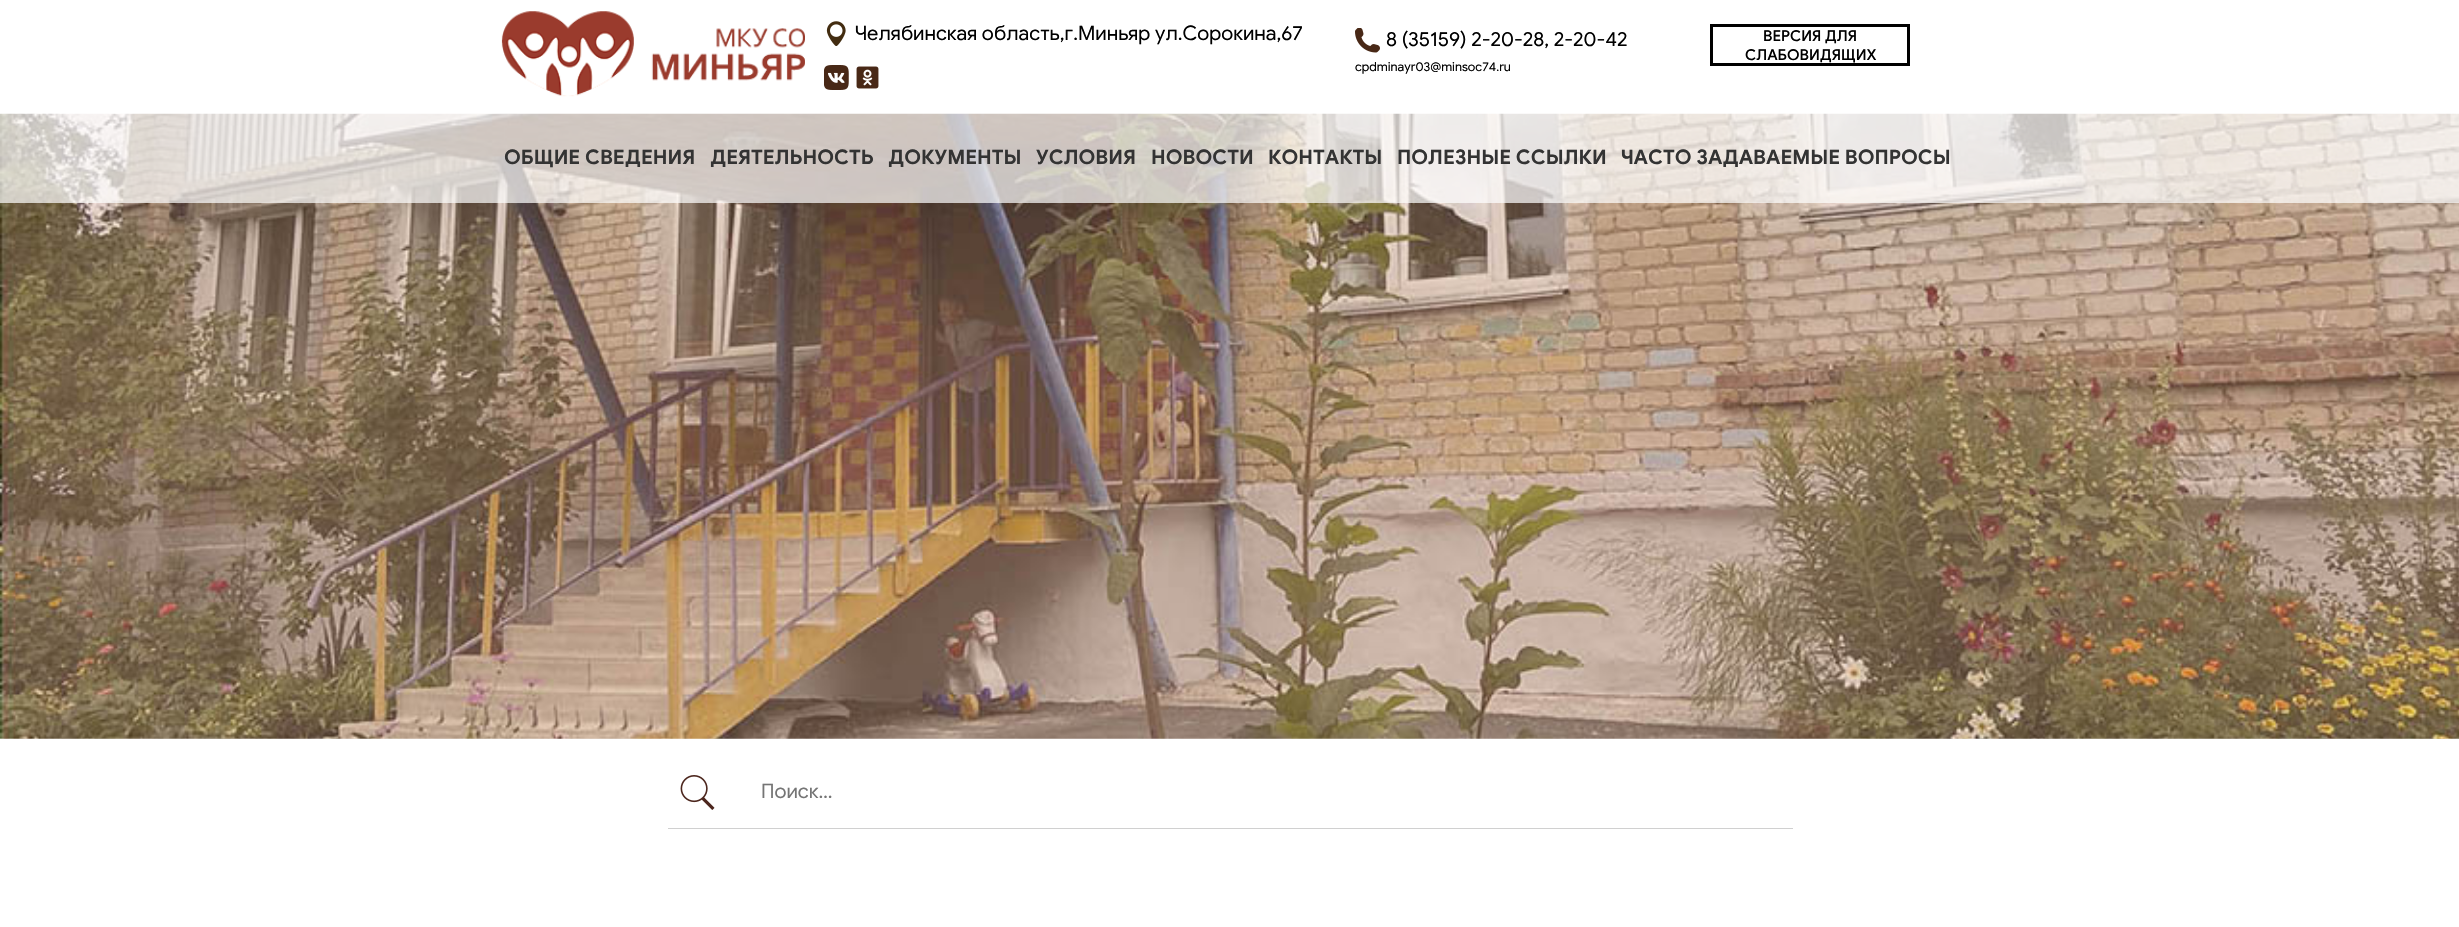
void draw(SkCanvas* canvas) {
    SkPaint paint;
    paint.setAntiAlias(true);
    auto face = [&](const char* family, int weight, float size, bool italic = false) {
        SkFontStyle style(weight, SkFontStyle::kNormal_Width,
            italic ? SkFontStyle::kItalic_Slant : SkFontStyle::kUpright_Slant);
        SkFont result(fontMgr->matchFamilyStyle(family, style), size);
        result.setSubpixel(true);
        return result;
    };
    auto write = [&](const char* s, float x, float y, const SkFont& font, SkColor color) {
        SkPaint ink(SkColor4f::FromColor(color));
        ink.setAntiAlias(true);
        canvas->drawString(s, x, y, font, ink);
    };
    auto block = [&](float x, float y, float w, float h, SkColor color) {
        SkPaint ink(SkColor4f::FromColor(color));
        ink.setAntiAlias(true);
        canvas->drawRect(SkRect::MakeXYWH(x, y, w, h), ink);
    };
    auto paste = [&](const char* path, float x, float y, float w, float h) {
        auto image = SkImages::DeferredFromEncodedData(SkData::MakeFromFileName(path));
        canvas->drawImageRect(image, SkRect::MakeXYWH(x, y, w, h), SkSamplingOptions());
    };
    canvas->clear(SK_ColorWHITE);
    paste("pic1.png", 501, 11, 304, 86);
    paste("pic2.png", 826, 21, 20, 25);
    auto kFont1 = face("Google Sans", 400, 20);
    write("Челябинская область,г.Миньяр ул.Сорокина,67", 855, 40, kFont1, SK_ColorBLACK);
    paste("pic3.png", 824, 65, 25, 25);
    paste("pic4.png", 856, 66, 23, 23);
    paste("pic5.png", 1355, 28, 25, 25);
    write("8 (35159) 2-20-28, 2-20-42", 1386, 46, kFont1, SK_ColorBLACK);
    auto kFont2 = face("Google Sans", 400, 12.5f);
    write("cpdminayr03@minsoc74.ru", 1355, 71, kFont2, SK_ColorBLACK);
    paint.setStyle(SkPaint::kStroke_Style);
    paint.setStrokeWidth(3);
    paint.setColor(SK_ColorBLACK);
    canvas->drawRect(SkRect::MakeXYWH(1711.5f, 25.5f, 197, 39), paint);
    auto kFont3 = face("Google Sans", 500, 15);
    write("ВЕРСИЯ ДЛЯ", 1763, 41, kFont3, SK_ColorBLACK);
    write("СЛАБОВИДЯЩИХ", 1745, 60, kFont3, SK_ColorBLACK);
    paste("pic6.png", 0, 113, 2459, 626);
    block(0, 113, 2459, 90, SkColorSetARGB(179, 255, 255, 255));
    auto kFont4 = face("Google Sans", 700, 20);
    write("ОБЩИЕ СВЕДЕНИЯ", 504, 164, kFont4, SkColorSetRGB(51, 51, 51));
    write("ДЕЯТЕЛЬНОСТЬ", 710, 164, kFont4, SkColorSetRGB(51, 51, 51));
    write("ДОКУМЕНТЫ", 888, 164, kFont4, SkColorSetRGB(51, 51, 51));
    write("УСЛОВИЯ", 1036, 164, kFont4, SkColorSetRGB(51, 51, 51));
    write("НОВОСТИ", 1151, 164, kFont4, SkColorSetRGB(51, 51, 51));
    write("КОНТАКТЫ", 1268, 164, kFont4, SkColorSetRGB(51, 51, 51));
    write("ПОЛЕЗНЫЕ ССЫЛКИ", 1397, 164, kFont4, SkColorSetRGB(51, 51, 51));
    write("ЧАСТО ЗАДАВАЕМЫЕ ВОПРОСЫ", 1621, 164, kFont4, SkColorSetRGB(51, 51, 51));
    block(668, 828, 1125, 1, SkColorSetRGB(208, 208, 208));
    paste("pic7.png", 680, 775, 35, 35);
    write("Поиск…", 761, 798, kFont1, SkColorSetRGB(117, 117, 117));
}
